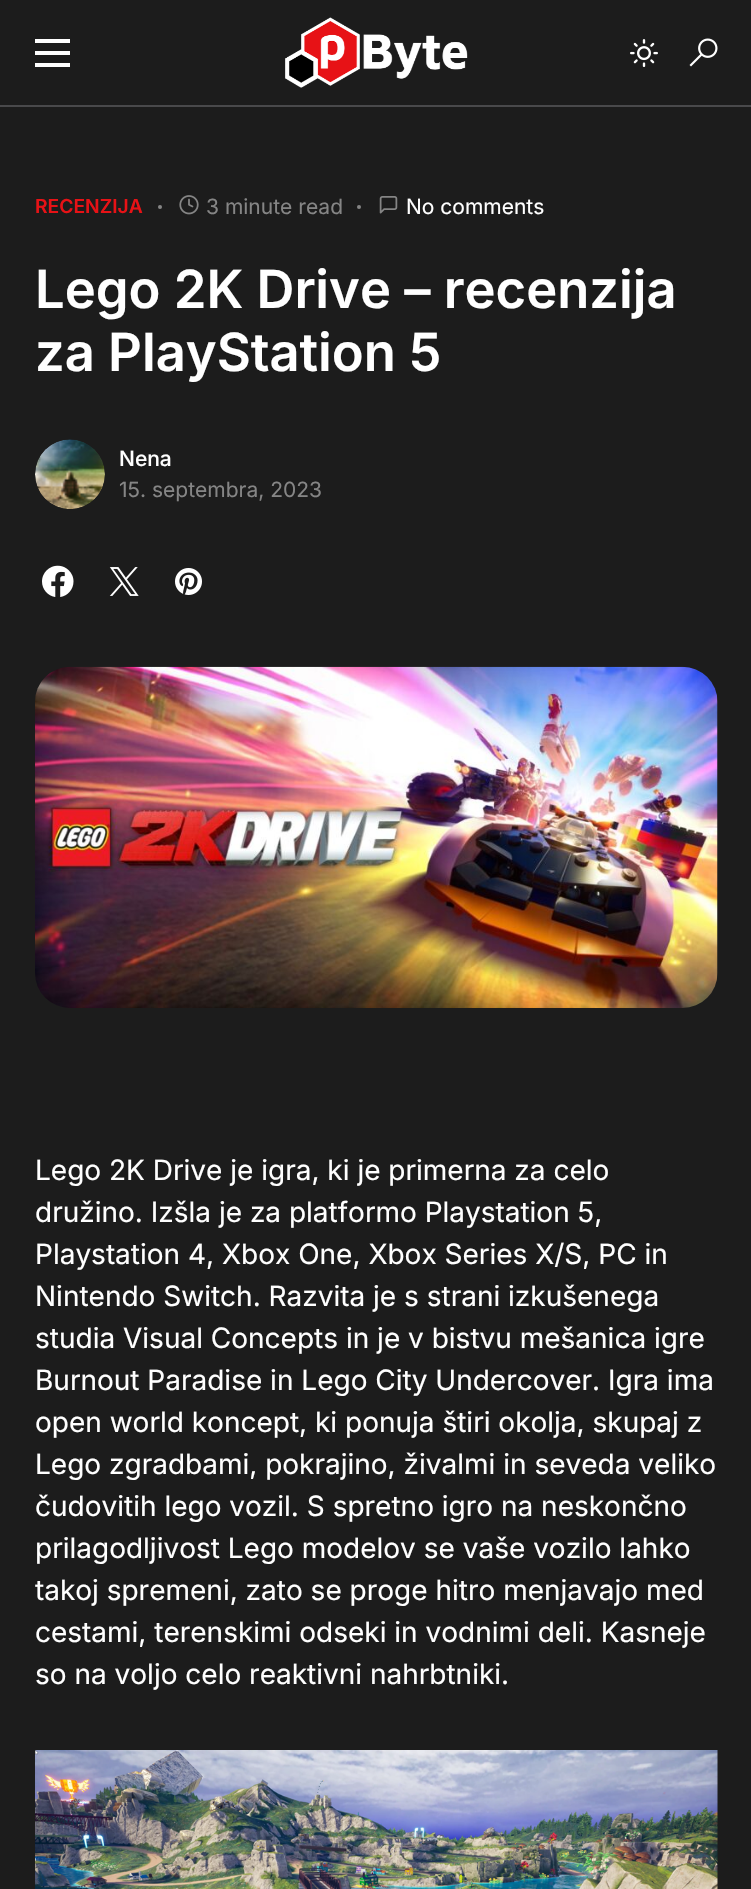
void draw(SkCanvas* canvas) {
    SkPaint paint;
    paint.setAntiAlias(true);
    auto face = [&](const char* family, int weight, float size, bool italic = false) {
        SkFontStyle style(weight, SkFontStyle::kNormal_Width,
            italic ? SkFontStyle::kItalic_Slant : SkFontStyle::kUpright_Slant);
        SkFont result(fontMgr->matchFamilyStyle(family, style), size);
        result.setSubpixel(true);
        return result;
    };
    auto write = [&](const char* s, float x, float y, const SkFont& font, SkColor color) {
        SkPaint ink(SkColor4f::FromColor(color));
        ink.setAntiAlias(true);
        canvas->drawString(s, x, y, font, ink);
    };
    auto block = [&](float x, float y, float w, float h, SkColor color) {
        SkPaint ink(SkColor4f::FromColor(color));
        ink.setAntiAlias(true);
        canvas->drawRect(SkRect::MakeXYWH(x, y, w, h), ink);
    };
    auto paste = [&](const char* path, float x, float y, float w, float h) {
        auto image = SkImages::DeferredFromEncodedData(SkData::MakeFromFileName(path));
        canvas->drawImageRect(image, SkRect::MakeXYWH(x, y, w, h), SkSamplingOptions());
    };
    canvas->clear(SkColorSetRGB(28, 28, 28));
    block(0, 105, 751, 2, SkColorSetRGB(73, 73, 75));
    block(35, 39, 35, 4, SK_ColorWHITE);
    block(35, 51, 35, 4, SK_ColorWHITE);
    block(35, 63, 35, 4, SK_ColorWHITE);
    paste("pic1.png", 285, 17, 183, 71);
    paste("pic2.png", 630, 39, 28, 28);
    paste("pic3.png", 689, 38, 29, 29);
    auto kFont1 = face("Inter", 600, 19.25f);
    write("RECENZIJA", 35, 213, kFont1, SkColorSetRGB(231, 18, 22));
    paint.setColor(SkColorSetRGB(133, 133, 133));
    canvas->drawCircle(160, 207, 2, paint);
    paste("pic4.png", 179, 195, 20, 20);
    auto kFont2 = face("Inter", 400, 21);
    write("3 minute read", 206, 214, kFont2, SkColorSetRGB(133, 133, 133));
    canvas->drawCircle(359, 207, 2, paint);
    paste("pic5.png", 379, 196, 19, 18);
    write("No comments", 406, 214, kFont2, SK_ColorWHITE);
    auto kFont3 = face("Inter", 600, 52.5f);
    write("Lego 2K Drive – recenzija", 35, 308, kFont3, SK_ColorWHITE);
    write("za PlayStation 5", 35, 371, kFont3, SK_ColorWHITE);
    paste("pic6.png", 35, 439, 70, 70);
    auto kFont4 = face("Inter", 500, 21);
    write("Nena", 119, 466, kFont4, SK_ColorWHITE);
    write("15. septembra, 2023", 119, 497, kFont2, SkColorSetRGB(133, 133, 133));
    paste("pic7.png", 42, 565, 32, 32);
    paste("pic8.png", 109, 567, 30, 29);
    paste("pic9.png", 175, 568, 27, 27);
    paste("pic10.png", 35, 666, 683, 342);
    auto kFont5 = face("Inter", 400, 28);
    write("Lego 2K Drive je igra, ki je primerna za celo", 35, 1180, kFont5, SK_ColorWHITE);
    write("družino. Izšla je za platformo Playstation 5,", 35, 1222, kFont5, SK_ColorWHITE);
    write("Playstation 4, Xbox One, Xbox Series X/S, PC in", 35, 1264, kFont5, SK_ColorWHITE);
    write("Nintendo Switch. Razvita je s strani izkušenega", 35, 1306, kFont5, SK_ColorWHITE);
    write("studia Visual Concepts in je v bistvu mešanica igre", 35, 1348, kFont5, SK_ColorWHITE);
    write("Burnout Paradise in Lego City Undercover. Igra ima", 35, 1390, kFont5, SK_ColorWHITE);
    write("open world koncept, ki ponuja štiri okolja, skupaj z", 35, 1432, kFont5, SK_ColorWHITE);
    write("Lego zgradbami, pokrajino, živalmi in seveda veliko", 35, 1474, kFont5, SK_ColorWHITE);
    write("čudovitih lego vozil. S spretno igro na neskončno", 35, 1516, kFont5, SK_ColorWHITE);
    write("prilagodljivost Lego modelov se vaše vozilo lahko", 35, 1558, kFont5, SK_ColorWHITE);
    write("takoj spremeni, zato se proge hitro menjavajo med", 35, 1600, kFont5, SK_ColorWHITE);
    write("cestami, terenskimi odseki in vodnimi deli. Kasneje", 35, 1642, kFont5, SK_ColorWHITE);
    write("so na voljo celo reaktivni nahrbtniki.", 35, 1684, kFont5, SK_ColorWHITE);
    paste("pic11.png", 35, 1750, 683, 139);
}
